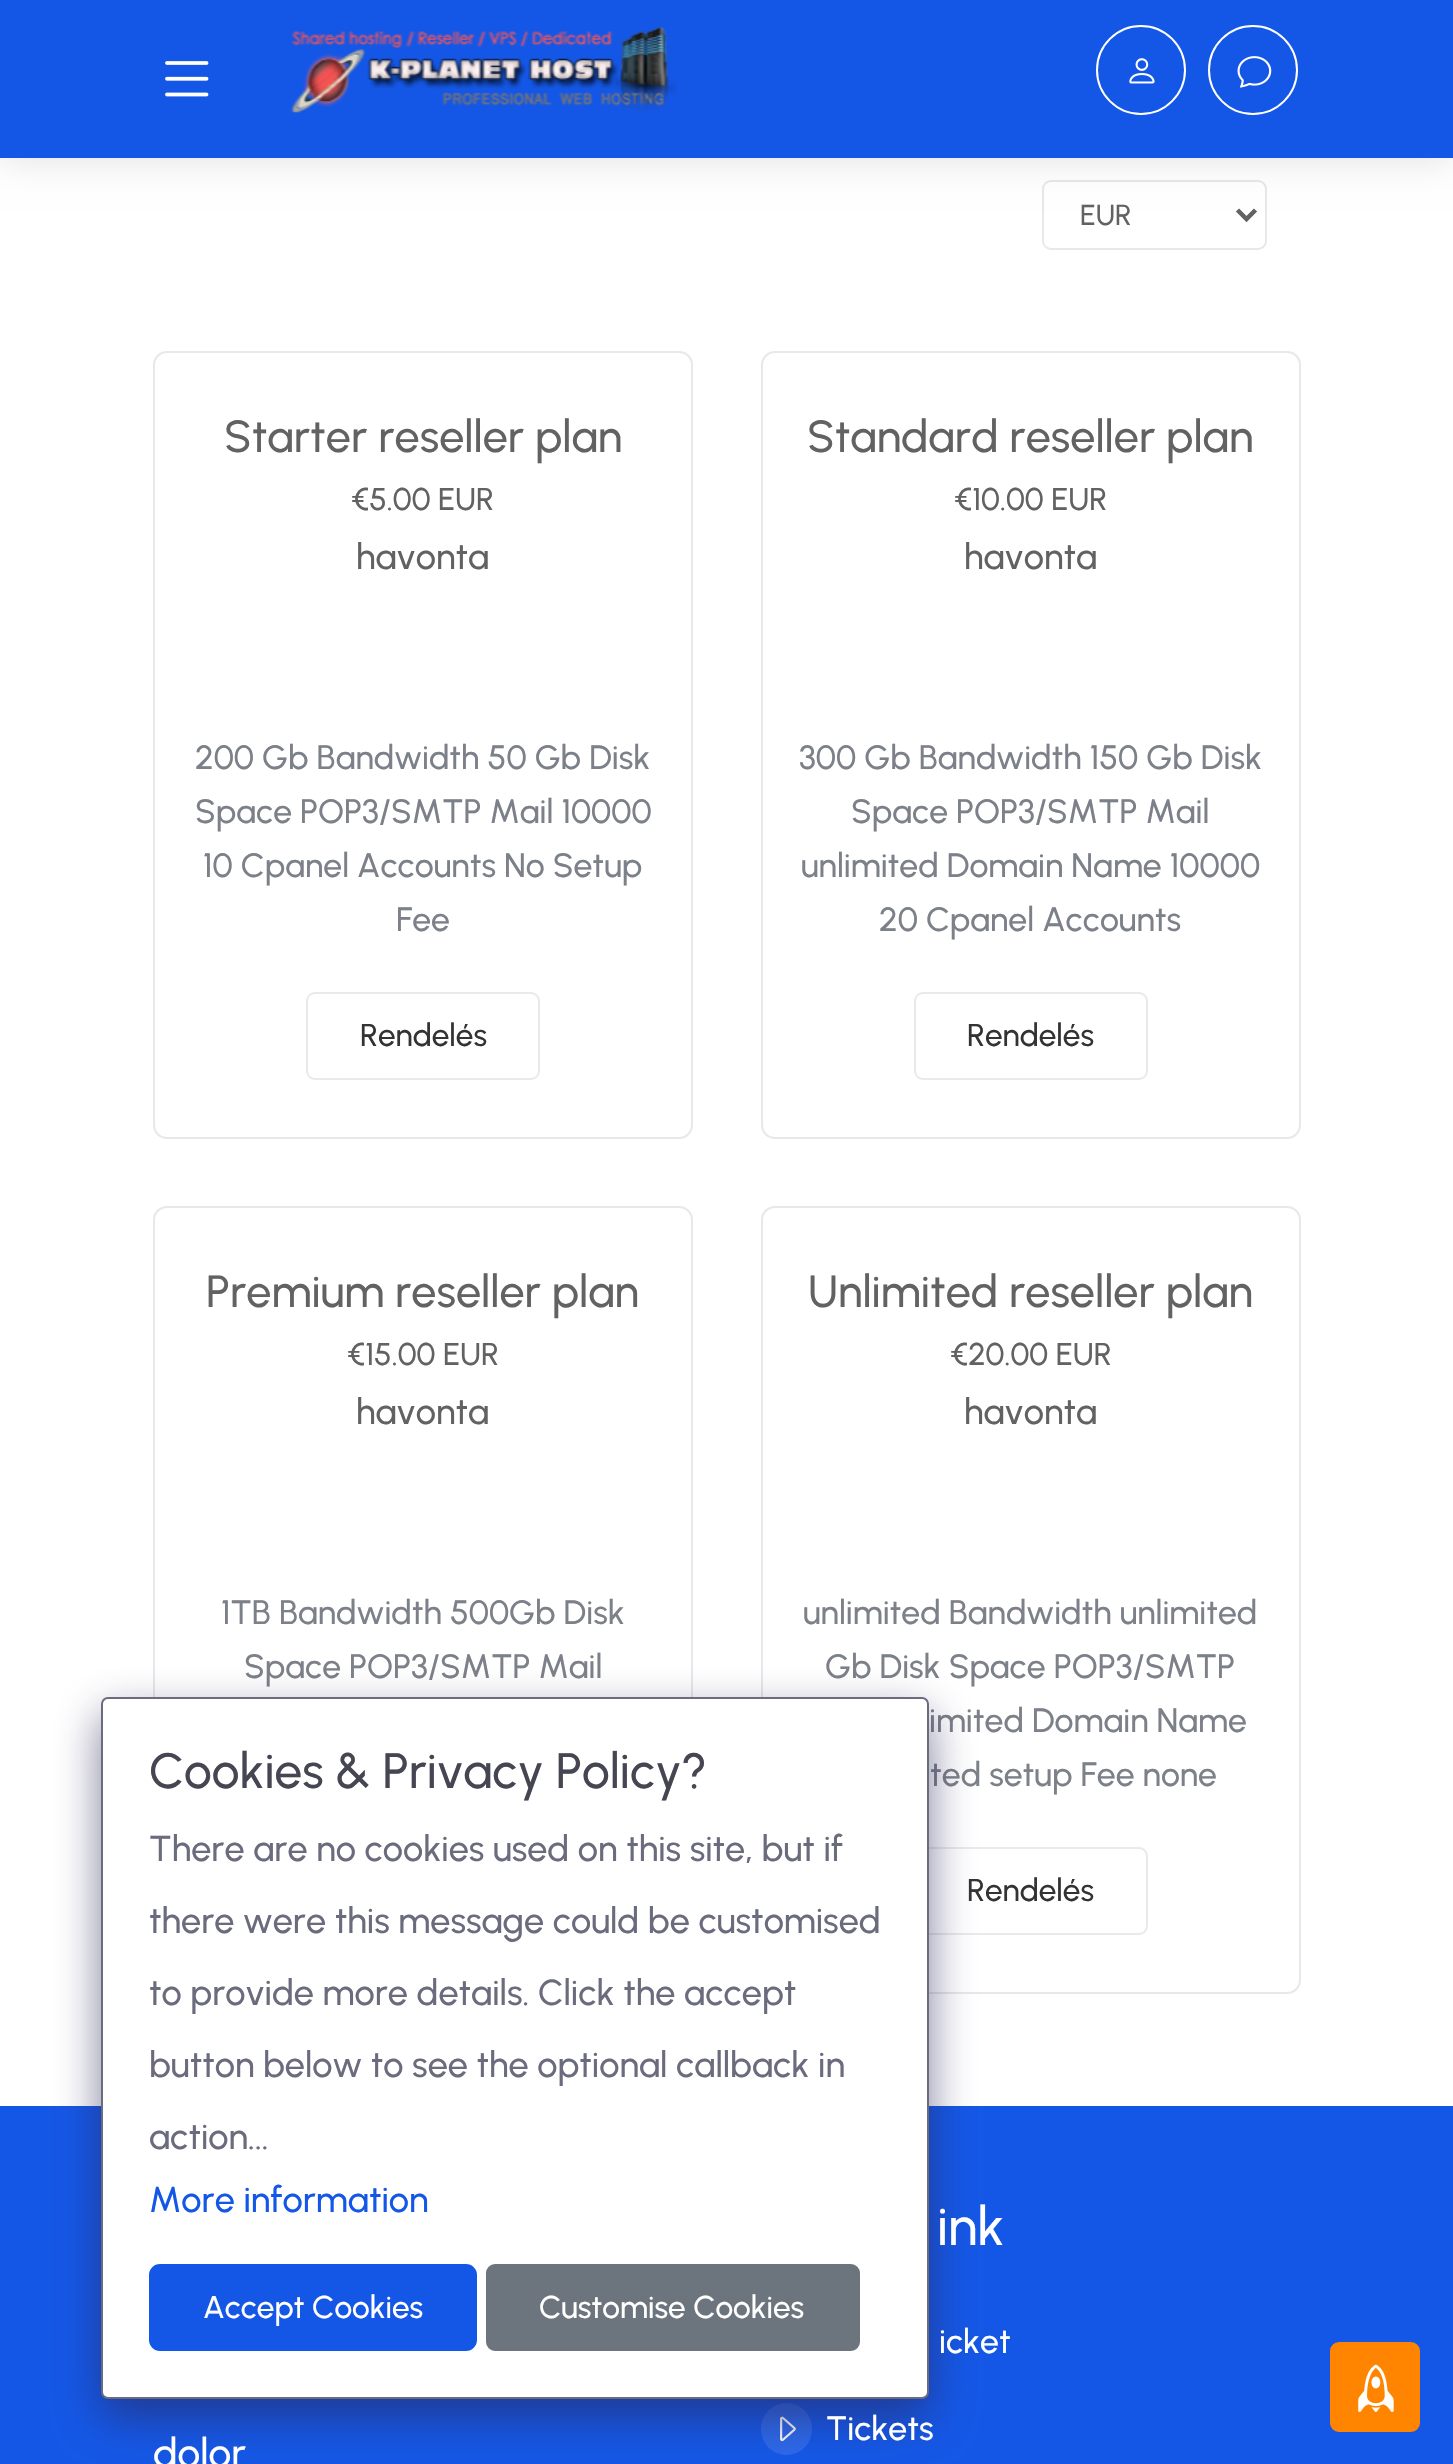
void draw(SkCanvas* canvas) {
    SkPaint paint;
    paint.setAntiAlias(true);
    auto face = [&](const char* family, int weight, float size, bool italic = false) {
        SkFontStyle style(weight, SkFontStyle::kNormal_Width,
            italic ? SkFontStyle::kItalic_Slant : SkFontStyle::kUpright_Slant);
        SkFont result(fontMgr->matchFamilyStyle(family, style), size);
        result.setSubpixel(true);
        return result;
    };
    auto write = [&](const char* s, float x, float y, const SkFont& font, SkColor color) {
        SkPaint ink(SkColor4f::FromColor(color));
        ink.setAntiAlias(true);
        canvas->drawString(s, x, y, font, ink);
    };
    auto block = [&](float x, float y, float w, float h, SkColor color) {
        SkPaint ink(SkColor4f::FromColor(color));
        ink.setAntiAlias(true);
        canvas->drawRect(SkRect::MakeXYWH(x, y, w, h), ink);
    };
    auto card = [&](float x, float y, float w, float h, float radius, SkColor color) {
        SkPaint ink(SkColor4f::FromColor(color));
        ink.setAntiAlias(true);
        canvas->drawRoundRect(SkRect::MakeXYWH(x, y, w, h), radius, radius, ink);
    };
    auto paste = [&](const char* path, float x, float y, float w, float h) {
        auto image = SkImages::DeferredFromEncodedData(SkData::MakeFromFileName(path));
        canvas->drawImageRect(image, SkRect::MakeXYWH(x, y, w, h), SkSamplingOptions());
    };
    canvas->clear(SK_ColorWHITE);
    paint.setStyle(SkPaint::kStroke_Style);
    paint.setStrokeWidth(2);
    paint.setColor(SkColorSetRGB(230, 232, 236));
    canvas->drawRoundRect(SkRect::MakeXYWH(1043, 181, 223, 68), 8, 8, paint);
    paint.setStrokeWidth(4.5f);
    paint.setColor(SkColorSetRGB(98, 98, 98));
    canvas->drawPath(SkPathBuilder().moveTo(1237.5f, 210).lineTo(1246.5f, 219).lineTo(1255.5f, 210).detach(), paint);
    paint.setStyle(SkPaint::kFill_Style);
    paint.setColor(SkColorSetARGB(26, 0, 0, 0));
    paint.setMaskFilter(SkMaskFilter::MakeBlur(kNormal_SkBlurStyle, 17));
    canvas->drawRect(SkRect::MakeXYWH(0, 5, 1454, 157), paint);
    paint.setMaskFilter(nullptr);
    block(0, 0, 1453, 158, SkColorSetRGB(20, 87, 230));
    paste("pic1.png", 165, 61, 44, 36);
    paste("pic2.png", 291, 27, 386, 86);
    paint.setStyle(SkPaint::kStroke_Style);
    paint.setStrokeWidth(2);
    paint.setColor(SK_ColorWHITE);
    canvas->drawCircle(1141, 70, 44, paint);
    paste("pic3.png", 1129, 58, 26, 26);
    canvas->drawCircle(1253, 70, 44, paint);
    paste("pic4.png", 1237, 56, 35, 32);
    auto kFont1 = face("Urbanist", 500, 29);
    write("EUR", 1080, 225, kFont1, SkColorSetRGB(98, 98, 98));
    paint.setColor(SkColorSetRGB(230, 232, 236));
    canvas->drawRoundRect(SkRect::MakeXYWH(154, 352, 538, 786), 13, 13, paint);
    auto kFont2 = face("Urbanist", 500, 45);
    write("Starter reseller plan", 224, 452, kFont2, SkColorSetRGB(98, 98, 98));
    auto kFont3 = face("Urbanist", 500, 31.5f);
    write("€5.00 EUR", 351, 510, kFont3, SkColorSetRGB(98, 98, 98));
    auto kFont4 = face("Urbanist", 500, 36);
    write("havonta", 356, 569, kFont4, SkColorSetRGB(98, 98, 98));
    auto kFont5 = face("Urbanist", 500, 33.75f);
    write("200 Gb Bandwidth 50 Gb Disk", 195, 769, kFont5, SkColorSetRGB(124, 128, 136));
    write("Space POP3/SMTP Mail 10000", 195, 823, kFont5, SkColorSetRGB(124, 128, 136));
    write("10 Cpanel Accounts No Setup", 203, 877, kFont5, SkColorSetRGB(124, 128, 136));
    write("Fee", 396, 931, kFont5, SkColorSetRGB(124, 128, 136));
    paint.setColor(SkColorSetRGB(233, 234, 236));
    canvas->drawRoundRect(SkRect::MakeXYWH(307, 993, 232, 86), 8, 8, paint);
    write("Rendelés", 360, 1046, kFont3, SkColorSetRGB(51, 51, 51));
    paint.setColor(SkColorSetRGB(230, 232, 236));
    canvas->drawRoundRect(SkRect::MakeXYWH(762, 352, 538, 786), 13, 13, paint);
    write("Standard reseller plan", 807, 452, kFont2, SkColorSetRGB(98, 98, 98));
    write("€10.00 EUR", 954, 510, kFont3, SkColorSetRGB(98, 98, 98));
    write("havonta", 964, 569, kFont4, SkColorSetRGB(98, 98, 98));
    write("300 Gb Bandwidth 150 Gb Disk", 799, 769, kFont5, SkColorSetRGB(124, 128, 136));
    write("Space POP3/SMTP Mail", 851, 823, kFont5, SkColorSetRGB(124, 128, 136));
    write("unlimited Domain Name 10000", 801, 877, kFont5, SkColorSetRGB(124, 128, 136));
    write("20 Cpanel Accounts", 879, 931, kFont5, SkColorSetRGB(124, 128, 136));
    paint.setColor(SkColorSetRGB(233, 234, 236));
    canvas->drawRoundRect(SkRect::MakeXYWH(915, 993, 232, 86), 8, 8, paint);
    write("Rendelés", 967, 1046, kFont3, SkColorSetRGB(51, 51, 51));
    paint.setColor(SkColorSetRGB(230, 232, 236));
    canvas->drawRoundRect(SkRect::MakeXYWH(154, 1207, 538, 786), 13, 13, paint);
    write("Premium reseller plan", 206, 1307, kFont2, SkColorSetRGB(98, 98, 98));
    write("€15.00 EUR", 347, 1365, kFont3, SkColorSetRGB(98, 98, 98));
    write("havonta", 356, 1424, kFont4, SkColorSetRGB(98, 98, 98));
    write("1TB Bandwidth 500Gb Disk", 221, 1624, kFont5, SkColorSetRGB(124, 128, 136));
    write("Space POP3/SMTP Mail", 244, 1678, kFont5, SkColorSetRGB(124, 128, 136));
    canvas->drawRoundRect(SkRect::MakeXYWH(762, 1207, 538, 786), 13, 13, paint);
    write("Unlimited reseller plan", 808, 1307, kFont2, SkColorSetRGB(98, 98, 98));
    write("€20.00 EUR", 950, 1365, kFont3, SkColorSetRGB(98, 98, 98));
    write("havonta", 964, 1424, kFont4, SkColorSetRGB(98, 98, 98));
    write("unlimited Bandwidth unlimited", 803, 1624, kFont5, SkColorSetRGB(124, 128, 136));
    write("Gb Disk Space POP3/SMTP", 825, 1678, kFont5, SkColorSetRGB(124, 128, 136));
    write("imited Domain Name", 929, 1732, kFont5, SkColorSetRGB(124, 128, 136));
    write("ted setup Fee none", 930, 1786, kFont5, SkColorSetRGB(124, 128, 136));
    paint.setColor(SkColorSetRGB(233, 234, 236));
    canvas->drawRoundRect(SkRect::MakeXYWH(915, 1848, 232, 86), 8, 8, paint);
    write("Rendelés", 967, 1901, kFont3, SkColorSetRGB(51, 51, 51));
    block(0, 2106, 1453, 358, SkColorSetRGB(20, 87, 230));
    card(761, 2403, 51, 52, 25.5f, SkColorSetRGB(44, 104, 233));
    paste("pic5.png", 780, 2416, 16, 26);
    paint.setStyle(SkPaint::kFill_Style);
    paint.setColor(SkColorSetARGB(153, 40, 37, 89));
    paint.setMaskFilter(SkMaskFilter::MakeBlur(kNormal_SkBlurStyle, 22.5f));
    canvas->drawRoundRect(SkRect::MakeXYWH(101, 1715, 828, 702), 7, 7, paint);
    paint.setMaskFilter(nullptr);
    paint.setColor(SK_ColorWHITE);
    canvas->drawRoundRect(SkRect::MakeXYWH(102, 1698, 826, 700), 6, 6, paint);
    paint.setStyle(SkPaint::kStroke_Style);
    paint.setColor(SkColorSetRGB(107, 107, 126));
    canvas->drawRoundRect(SkRect::MakeXYWH(102, 1698, 826, 700), 6, 6, paint);
    auto kFont6 = face("Urbanist", 500, 49.5f);
    write("Cookies & Privacy Policy?", 149, 1788, kFont6, SkColorSetRGB(70, 70, 83));
    write("There are no cookies used on this site, but if", 149, 1861, kFont4, SkColorSetRGB(107, 107, 126));
    write("there were this message could be customised", 149, 1933, kFont4, SkColorSetRGB(107, 107, 126));
    write("to provide more details. Click the accept", 149, 2005, kFont4, SkColorSetRGB(107, 107, 126));
    write("button below to see the optional callback in", 149, 2077, kFont4, SkColorSetRGB(107, 107, 126));
    write("action...", 149, 2149, kFont4, SkColorSetRGB(107, 107, 126));
    write("More information", 149, 2212, kFont4, SkColorSetRGB(20, 87, 230));
    paint.setStyle(SkPaint::kFill_Style);
    paint.setColor(SkColorSetRGB(20, 87, 230));
    canvas->drawRoundRect(SkRect::MakeXYWH(150, 2265, 326, 85), 10, 10, paint);
    paint.setStyle(SkPaint::kStroke_Style);
    canvas->drawRoundRect(SkRect::MakeXYWH(150, 2265, 326, 85), 10, 10, paint);
    write("Accept Cookies", 203, 2318, kFont3, SK_ColorWHITE);
    paint.setStyle(SkPaint::kFill_Style);
    paint.setColor(SkColorSetRGB(108, 117, 125));
    canvas->drawRoundRect(SkRect::MakeXYWH(487, 2265, 372, 85), 8, 8, paint);
    paint.setStyle(SkPaint::kStroke_Style);
    canvas->drawRoundRect(SkRect::MakeXYWH(487, 2265, 372, 85), 8, 8, paint);
    write("Customise Cookies", 539, 2318, kFont3, SK_ColorWHITE);
    auto kFont7 = face("Urbanist", 500, 54);
    write("ink", 937, 2245, kFont7, SK_ColorWHITE);
    write("icket", 939, 2353, kFont5, SK_ColorWHITE);
    write("Tickets", 826, 2440, kFont5, SK_ColorWHITE);
    auto kFont8 = face("Urbanist", 500, 40.5f);
    write("dolor", 153, 2467, kFont8, SK_ColorWHITE);
    card(1330, 2342, 90, 90, 9, SkColorSetRGB(255, 132, 0));
    paste("pic6.png", 1358, 2364, 36, 48);
}
